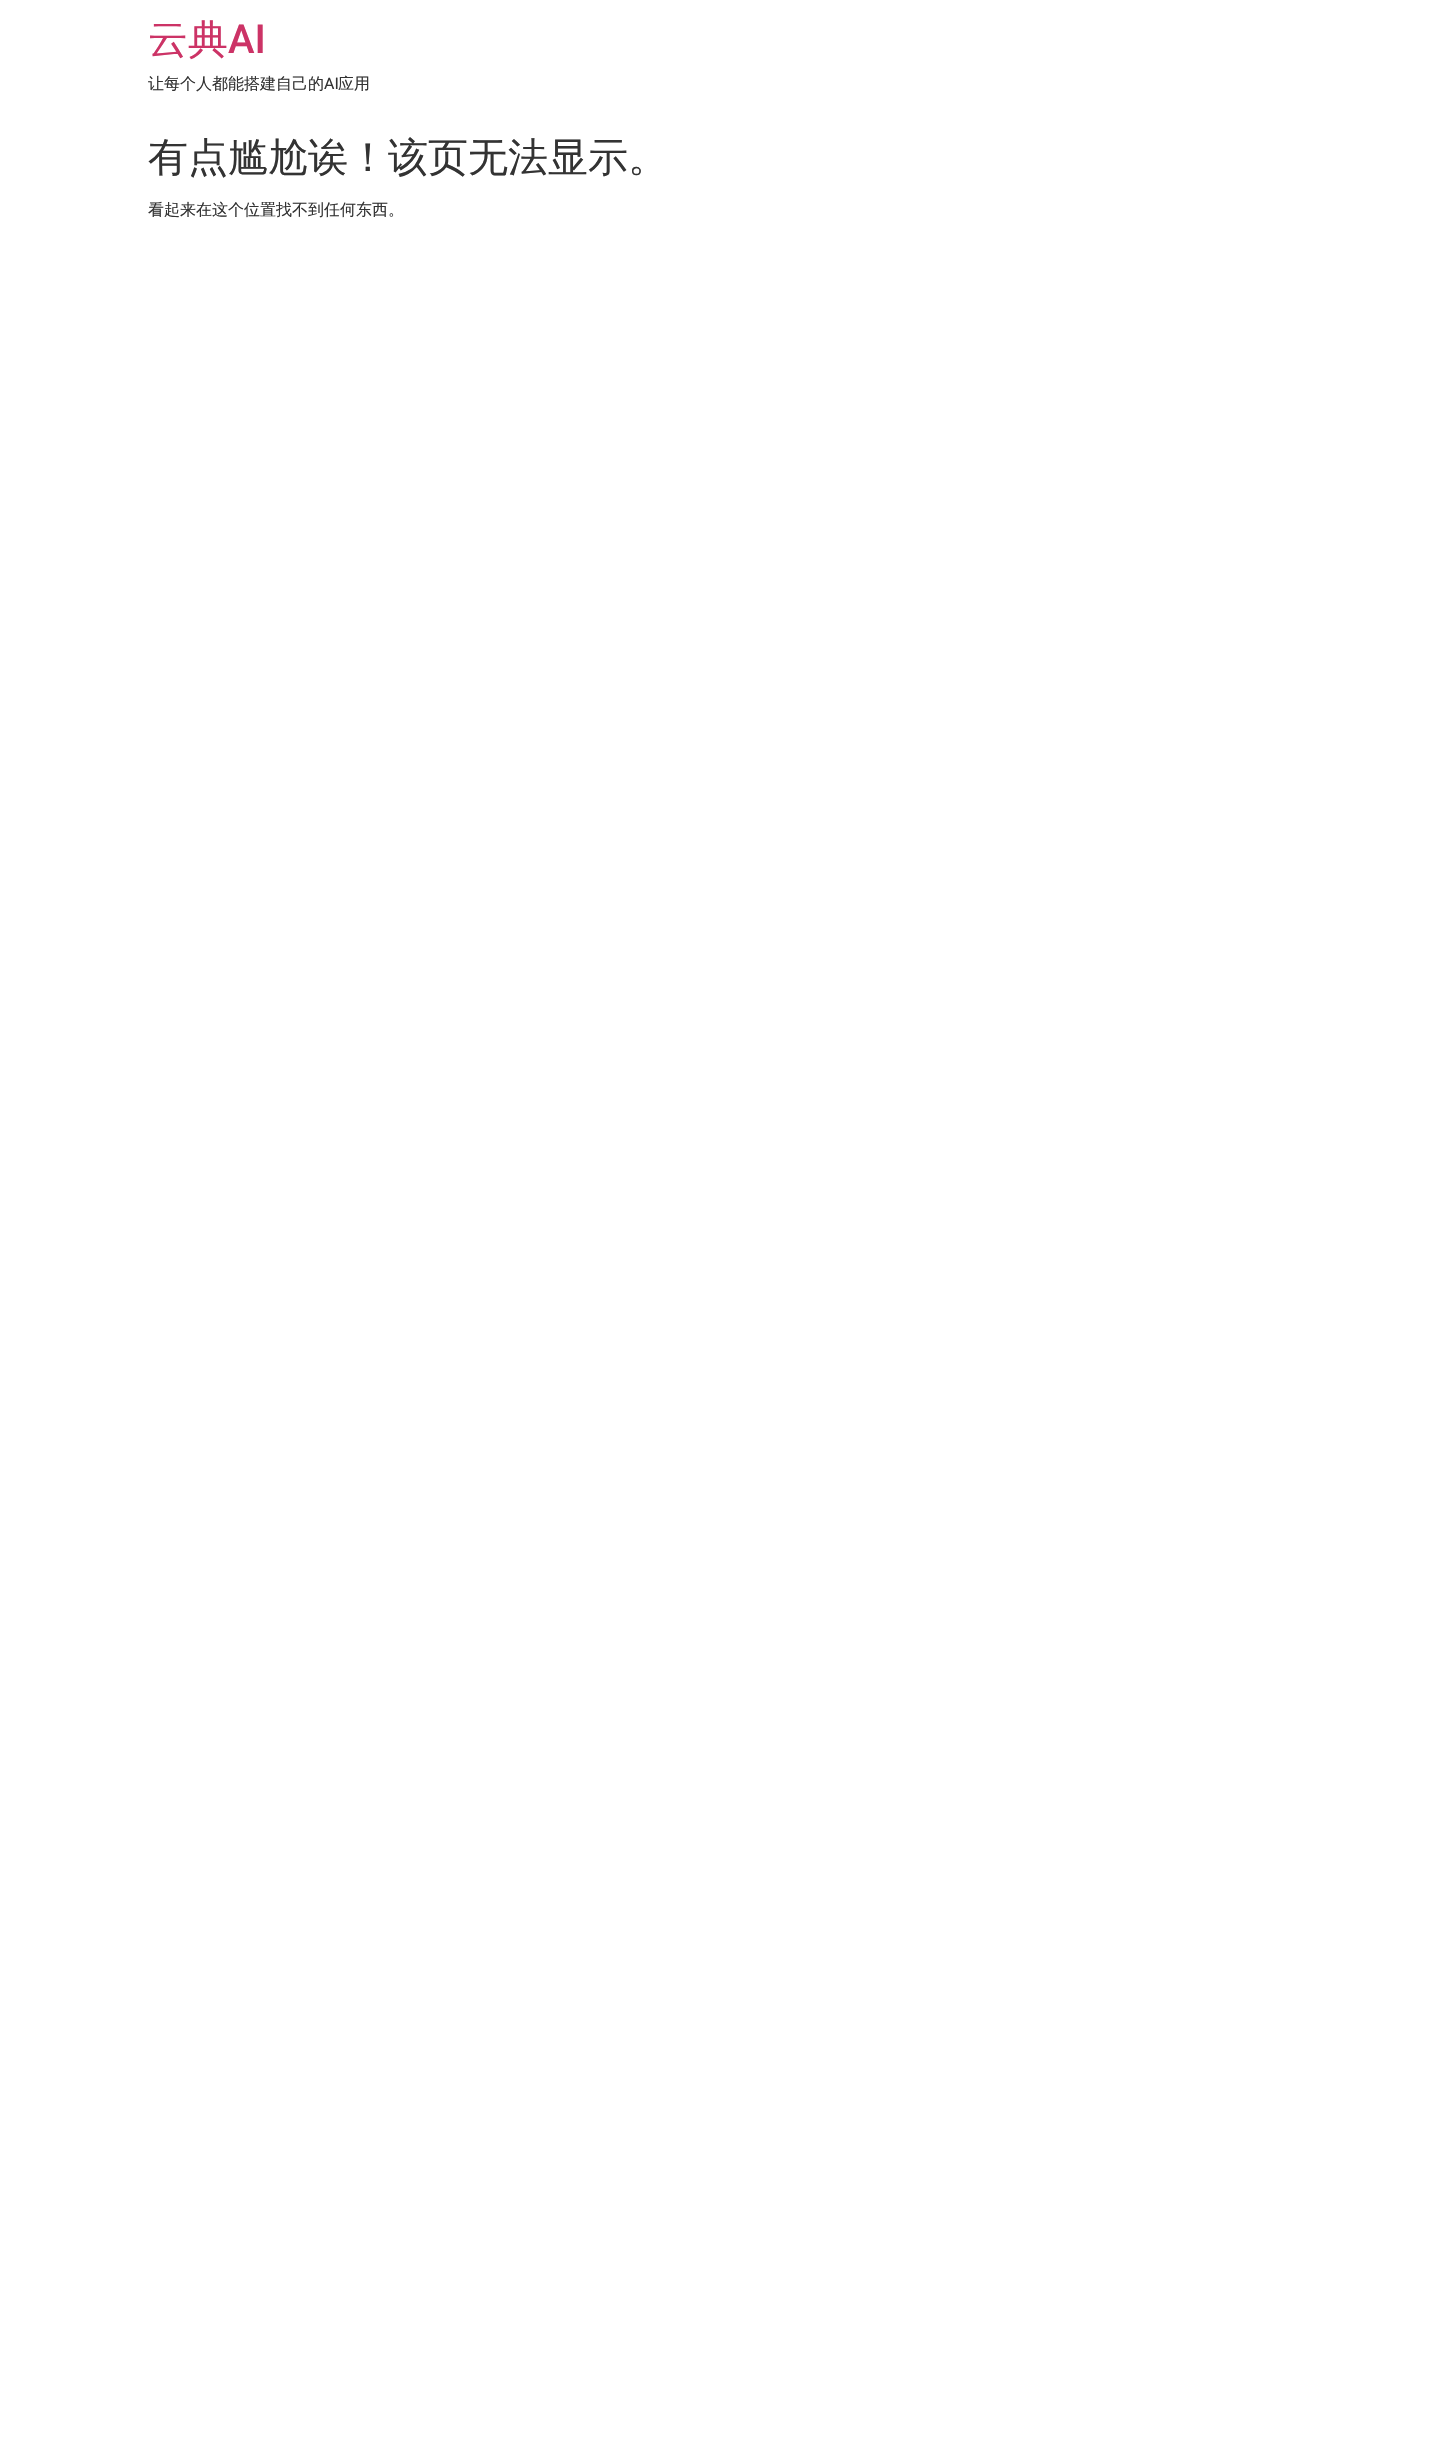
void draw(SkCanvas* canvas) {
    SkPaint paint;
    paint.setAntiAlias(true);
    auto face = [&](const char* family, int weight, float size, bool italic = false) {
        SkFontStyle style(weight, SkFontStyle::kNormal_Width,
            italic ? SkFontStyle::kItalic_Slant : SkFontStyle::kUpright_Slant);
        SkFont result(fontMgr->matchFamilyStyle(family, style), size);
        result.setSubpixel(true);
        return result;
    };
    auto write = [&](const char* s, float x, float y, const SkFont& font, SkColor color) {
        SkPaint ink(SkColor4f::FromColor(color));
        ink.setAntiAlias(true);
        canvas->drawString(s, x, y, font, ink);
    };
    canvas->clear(SK_ColorWHITE);
    auto kFont1 = face("WenQuanYi Zen Hei", 500, 40);
    write("云典", 148, 53, kFont1, SkColorSetRGB(204, 51, 102));
    auto kFont2 = face("Roboto", 500, 40);
    write("AI", 228, 53, kFont2, SkColorSetRGB(204, 51, 102));
    auto kFont3 = face("WenQuanYi Zen Hei", 500, 16);
    write("让每个人都能搭建自己的", 148, 89, kFont3, SkColorSetRGB(51, 51, 51));
    auto kFont4 = face("Roboto", 400, 16);
    write("AI", 324, 89, kFont4, SkColorSetRGB(51, 51, 51));
    write("应用", 338, 89, kFont3, SkColorSetRGB(51, 51, 51));
    write("有点尴尬诶！该页无法显示。", 148, 171, kFont1, SkColorSetRGB(51, 51, 51));
    write("看起来在这个位置找不到任何东西。", 148, 215, kFont3, SkColorSetRGB(51, 51, 51));
}
